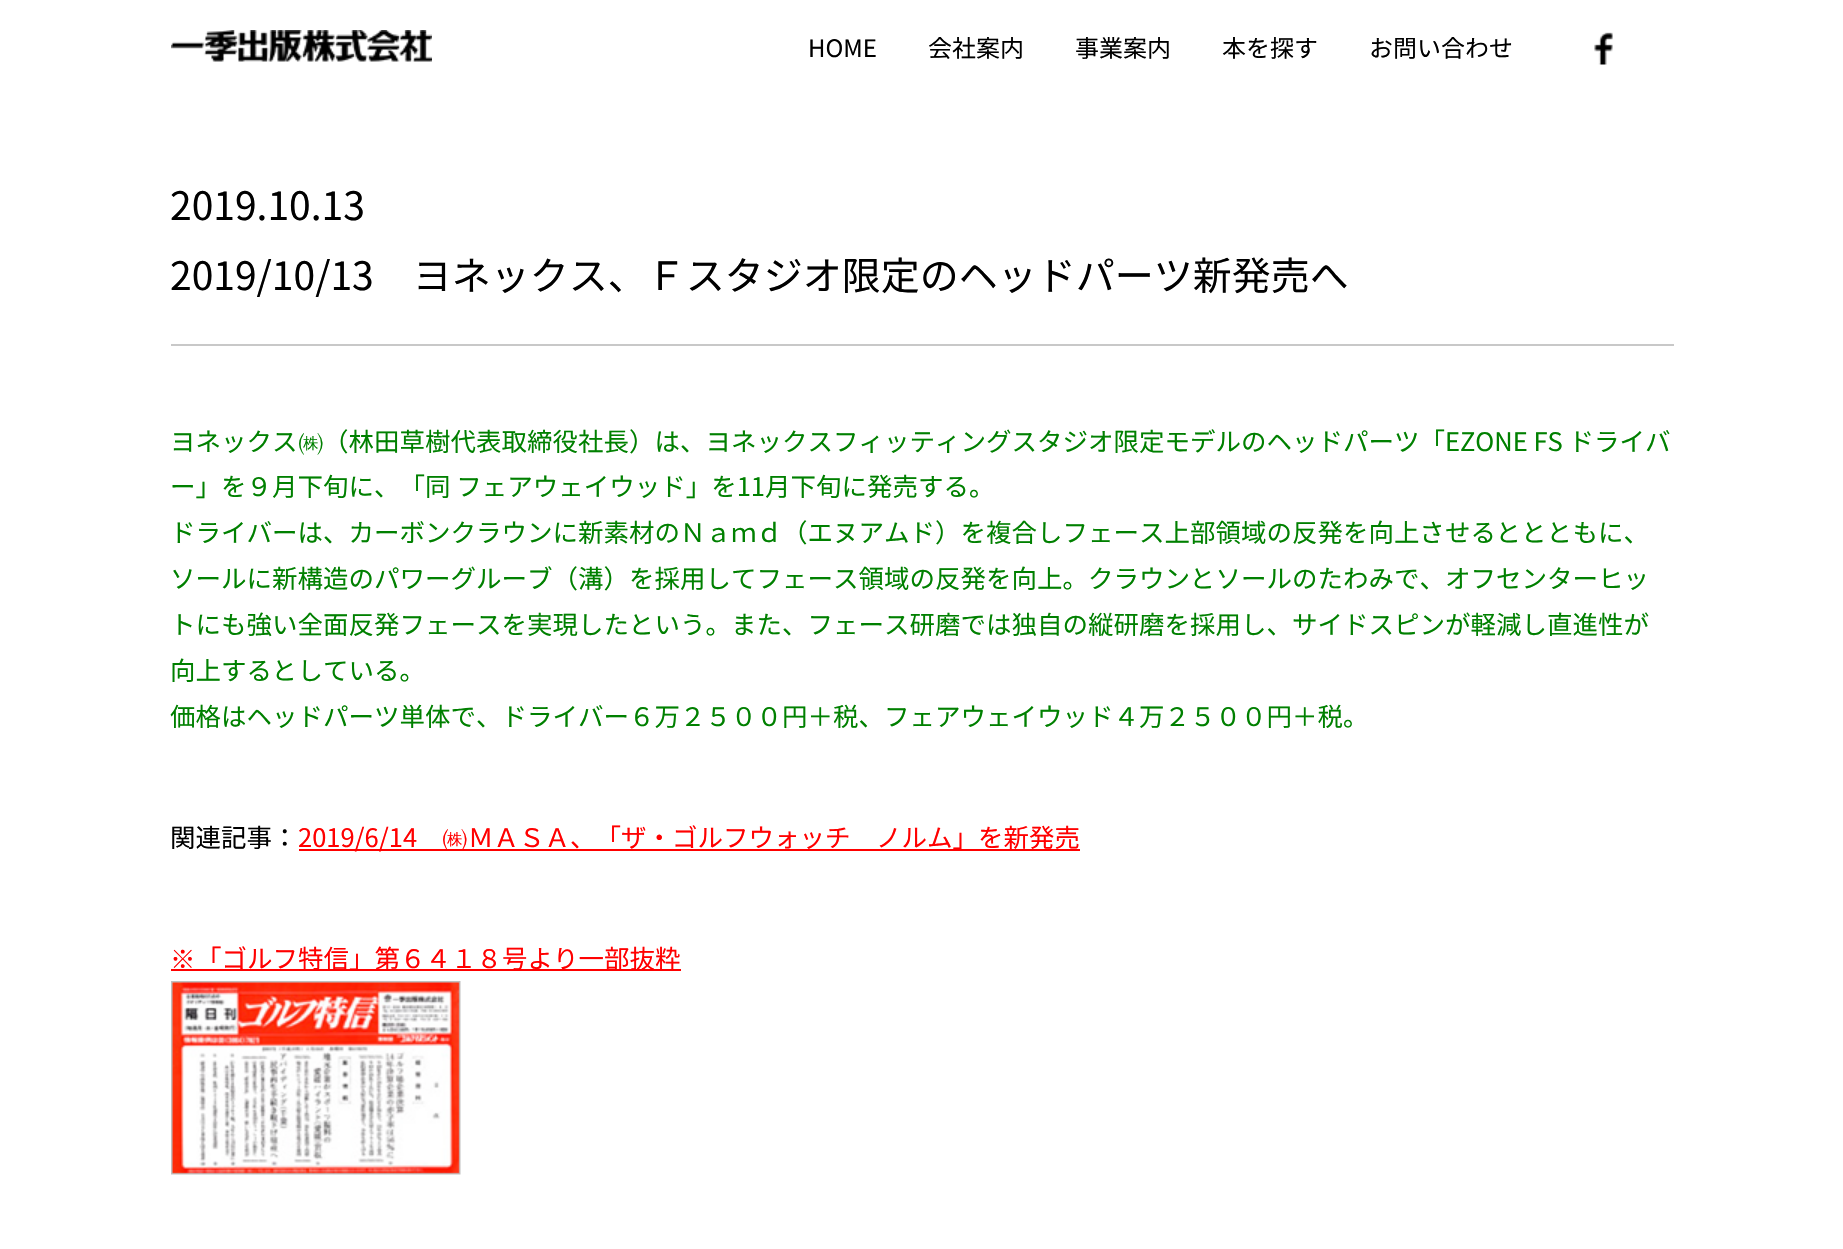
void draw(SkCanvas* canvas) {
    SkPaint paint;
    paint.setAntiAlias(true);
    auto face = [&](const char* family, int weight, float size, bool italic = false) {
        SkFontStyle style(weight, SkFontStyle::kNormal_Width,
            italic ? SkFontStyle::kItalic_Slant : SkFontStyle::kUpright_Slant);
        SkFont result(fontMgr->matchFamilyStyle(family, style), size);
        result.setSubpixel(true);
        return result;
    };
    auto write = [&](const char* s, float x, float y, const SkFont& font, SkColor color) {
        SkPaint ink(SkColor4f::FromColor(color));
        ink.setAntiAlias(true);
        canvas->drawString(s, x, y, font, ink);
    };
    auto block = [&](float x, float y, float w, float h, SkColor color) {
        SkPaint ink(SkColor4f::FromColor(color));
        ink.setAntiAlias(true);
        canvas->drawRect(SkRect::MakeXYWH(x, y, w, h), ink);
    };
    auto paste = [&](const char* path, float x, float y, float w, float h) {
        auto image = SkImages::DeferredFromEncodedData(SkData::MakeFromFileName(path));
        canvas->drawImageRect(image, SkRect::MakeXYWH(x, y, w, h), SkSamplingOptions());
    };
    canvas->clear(SK_ColorWHITE);
    paste("pic1.png", 171, 30, 261, 32);
    auto kFont1 = face("Noto Sans JP", 400, 24);
    write("HOME", 808, 57, kFont1, SK_ColorBLACK);
    write("会社案内", 928, 57, kFont1, SK_ColorBLACK);
    write("事業案内", 1075, 57, kFont1, SK_ColorBLACK);
    write("本を探す", 1222, 57, kFont1, SK_ColorBLACK);
    write("お問い合わせ", 1369, 57, kFont1, SK_ColorBLACK);
    paste("pic2.png", 1594, 32, 19, 33);
    auto kFont2 = face("Noto Sans JP", 400, 39);
    write("2019.10.13", 170, 220, kFont2, SK_ColorBLACK);
    write("2019/10/13　ヨネックス、Ｆスタジオ限定のヘッドパーツ新発売へ", 170, 290, kFont2, SK_ColorBLACK);
    block(171, 344, 1503, 2, SkColorSetRGB(200, 200, 200));
    auto kFont3 = face("Noto Sans JP", 400, 25.5f);
    write("ヨネックス", 170, 451, kFont3, SkColorSetRGB(0, 128, 0));
    auto kFont4 = face("WenQuanYi Zen Hei", 500, 25.5f);
    write("㈱", 298, 451, kFont4, SkColorSetRGB(0, 128, 0));
    write("（林田草樹代表取締役社長）は、ヨネックスフィッティングスタジオ限定モデルのヘッドパーツ「EZONE FS ドライバ", 323, 451, kFont3, SkColorSetRGB(0, 128, 0));
    write("ー」を９月下旬に、「同 フェアウェイウッド」を11月下旬に発売する。", 170, 496, kFont3, SkColorSetRGB(0, 128, 0));
    write("ドライバーは、カーボンクラウンに新素材のＮａｍｄ（エヌアムド）を複合しフェース上部領域の反発を向上させるととともに、", 170, 542, kFont3, SkColorSetRGB(0, 128, 0));
    write("ソールに新構造のパワーグルーブ（溝）を採用してフェース領域の反発を向上。クラウンとソールのたわみで、オフセンターヒッ", 170, 588, kFont3, SkColorSetRGB(0, 128, 0));
    write("トにも強い全面反発フェースを実現したという。また、フェース研磨では独自の縦研磨を採用し、サイドスピンが軽減し直進性が", 170, 634, kFont3, SkColorSetRGB(0, 128, 0));
    write("向上するとしている。", 170, 680, kFont3, SkColorSetRGB(0, 128, 0));
    write("価格はヘッドパーツ単体で、ドライバー６万２５００円＋税、フェアウェイウッド４万２５００円＋税。", 170, 726, kFont3, SkColorSetRGB(0, 128, 0));
    write("関連記事：", 170, 847, kFont3, SK_ColorBLACK);
    block(299, 849, 781, 2, SkColorSetRGB(255, 0, 0));
    write("2019/6/14", 298, 847, kFont3, SkColorSetRGB(255, 0, 0));
    write("㈱", 442, 847, kFont4, SkColorSetRGB(255, 0, 0));
    write("ＭＡＳＡ、「ザ・ゴルフウォッチ　ノルム」を新発売", 468, 847, kFont3, SkColorSetRGB(255, 0, 0));
    write("※", 170, 968, kFont4, SkColorSetRGB(255, 0, 0));
    block(171, 969, 510, 2, SkColorSetRGB(255, 0, 0));
    write("「ゴルフ特信」第６４１８号より一部抜粋", 196, 968, kFont3, SkColorSetRGB(255, 0, 0));
    paste("pic3.png", 171, 981, 290, 194);
}
